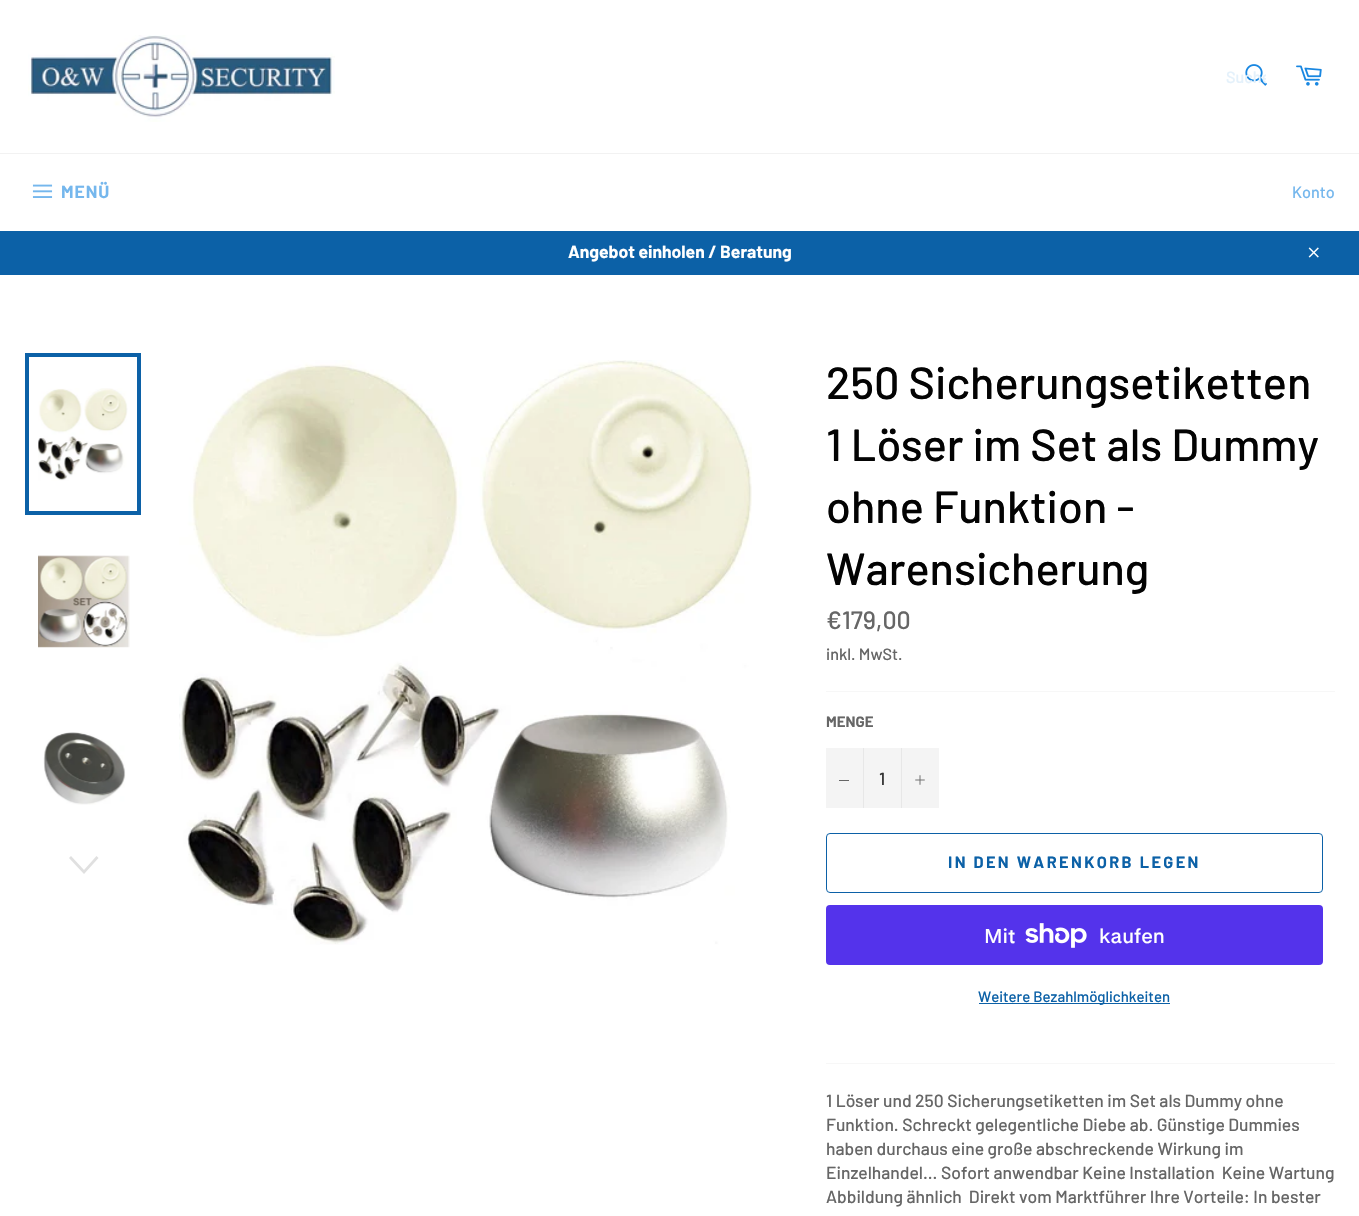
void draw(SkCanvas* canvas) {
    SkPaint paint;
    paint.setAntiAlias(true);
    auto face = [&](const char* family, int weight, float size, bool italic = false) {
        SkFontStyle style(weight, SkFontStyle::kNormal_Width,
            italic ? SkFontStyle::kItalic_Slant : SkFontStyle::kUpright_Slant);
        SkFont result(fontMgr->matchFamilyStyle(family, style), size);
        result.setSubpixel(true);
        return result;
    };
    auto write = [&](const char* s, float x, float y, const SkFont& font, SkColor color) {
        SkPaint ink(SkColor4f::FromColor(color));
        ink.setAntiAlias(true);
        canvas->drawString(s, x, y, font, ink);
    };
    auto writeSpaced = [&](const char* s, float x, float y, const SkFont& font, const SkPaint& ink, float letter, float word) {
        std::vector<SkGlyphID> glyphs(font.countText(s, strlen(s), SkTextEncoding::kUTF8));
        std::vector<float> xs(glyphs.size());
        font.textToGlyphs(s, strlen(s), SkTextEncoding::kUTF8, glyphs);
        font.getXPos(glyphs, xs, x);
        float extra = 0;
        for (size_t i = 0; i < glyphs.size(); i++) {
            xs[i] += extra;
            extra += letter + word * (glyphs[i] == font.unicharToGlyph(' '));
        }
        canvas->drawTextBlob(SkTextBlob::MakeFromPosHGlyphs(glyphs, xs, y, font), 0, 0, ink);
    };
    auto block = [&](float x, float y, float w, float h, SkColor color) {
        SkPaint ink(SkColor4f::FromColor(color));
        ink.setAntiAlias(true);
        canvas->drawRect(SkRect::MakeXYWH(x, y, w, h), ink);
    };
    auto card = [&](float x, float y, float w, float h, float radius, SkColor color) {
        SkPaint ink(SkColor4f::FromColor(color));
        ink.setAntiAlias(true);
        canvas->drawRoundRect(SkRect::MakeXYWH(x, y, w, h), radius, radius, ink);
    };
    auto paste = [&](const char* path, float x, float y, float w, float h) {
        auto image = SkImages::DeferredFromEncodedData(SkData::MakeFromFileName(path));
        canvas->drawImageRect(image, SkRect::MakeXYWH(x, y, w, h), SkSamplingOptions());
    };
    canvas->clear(SK_ColorWHITE);
    paste("pic1.png", 28, 35, 307, 87);
    paste("pic2.png", 1245, 64, 22, 22);
    canvas->save();
    canvas->clipRect(SkRect::MakeXYWH(1226, 66, 40, 20));
    auto kFont1 = face("Barlow", 500, 16.25f);
    write("Suche", 1226, 83, kFont1, SkColorSetRGB(228, 241, 251));
    canvas->restore();
    paste("pic3.png", 1296, 65, 26, 21);
    block(0, 153, 1359, 1, SkColorSetRGB(242, 242, 242));
    paste("pic4.png", 32, 184, 21, 14);
    auto kFont2 = face("Barlow", 700, 17.5f);
    paint.setColor(SkColorSetRGB(117, 183, 237));
    writeSpaced("MENÜ", 61, 198, kFont2, paint, 1, 0);
    write("Konto", 1292, 198, kFont1, SkColorSetRGB(117, 183, 237));
    block(0, 231, 1359, 44, SkColorSetRGB(12, 97, 167));
    write("Angebot einholen / Beratung", 568, 258, kFont2, SK_ColorWHITE);
    paste("pic5.png", 1308, 247, 11, 11);
    paste("pic6.png", 38, 388, 90, 93);
    paint.setStyle(SkPaint::kStroke_Style);
    paint.setStrokeWidth(4);
    paint.setColor(SkColorSetRGB(12, 97, 167));
    canvas->drawRect(SkRect::MakeXYWH(27, 355, 112, 158), paint);
    paste("pic7.png", 38, 555, 92, 93);
    paste("pic8.png", 43, 732, 83, 73);
    paint.setStyle(SkPaint::kFill_Style);
    paint.setColor(SkColorSetRGB(224, 224, 224));
    canvas->drawPath(SkPathBuilder().moveTo(96.5f, 856).lineTo(98.5f, 858).lineTo(84, 874).lineTo(69, 858).lineTo(71, 856).lineTo(84, 870).close().detach(), paint);
    paste("pic9.png", 179, 360, 573, 585);
    auto kFont3 = face("Barlow", 500, 45);
    write("250 Sicherungsetiketten", 826, 399, kFont3, SkColorSetRGB(3, 3, 3));
    write("1 Löser im Set als Dummy", 826, 461, kFont3, SkColorSetRGB(3, 3, 3));
    write("ohne Funktion -", 826, 523, kFont3, SkColorSetRGB(3, 3, 3));
    write("Warensicherung", 826, 585, kFont3, SkColorSetRGB(3, 3, 3));
    auto kFont4 = face("Barlow", 500, 25);
    write("€179,00", 826, 629, kFont4, SkColorSetRGB(102, 102, 102));
    write("inkl. MwSt.", 826, 660, kFont1, SkColorSetRGB(102, 102, 102));
    block(826, 691, 509, 1, SkColorSetRGB(247, 247, 247));
    auto kFont5 = face("Barlow", 700, 15);
    write("MENGE", 826, 727, kFont5, SkColorSetRGB(102, 102, 102));
    block(826, 748, 113, 60, SkColorSetRGB(244, 244, 244));
    block(863, 748, 1, 60, SkColorSetRGB(231, 231, 231));
    block(839, 780, 10, 1, SkColorSetRGB(102, 102, 102));
    auto kFont6 = face("Barlow", 500, 17.5f);
    write("1", 879, 785, kFont6, SkColorSetRGB(51, 51, 51));
    block(901, 748, 1, 60, SkColorSetRGB(231, 231, 231));
    paste("pic10.png", 915, 775, 10, 10);
    paint.setStyle(SkPaint::kStroke_Style);
    paint.setStrokeWidth(1);
    paint.setColor(SkColorSetRGB(12, 97, 167));
    canvas->drawRoundRect(SkRect::MakeXYWH(826.5f, 833.5f, 496, 59), 3.5f, 3.5f, paint);
    auto kFont7 = face("Barlow", 700, 16.25f);
    paint.setStyle(SkPaint::kFill_Style);
    writeSpaced("IN DEN WARENKORB LEGEN", 948, 868, kFont7, paint, 2.4f, 0);
    card(826, 905, 497, 60, 4, SkColorSetRGB(84, 51, 235));
    auto kFont8 = face("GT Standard", 500, 20);
    write("Mit", 984, 943, kFont8, SK_ColorWHITE);
    paste("pic11.png", 1025, 923, 62, 25);
    write("kaufen", 1099, 943, kFont8, SK_ColorWHITE);
    block(979, 1003, 191, 1, SkColorSetRGB(12, 97, 167));
    auto kFont9 = face("Barlow", 500, 15);
    write("Weitere Bezahlmöglichkeiten", 978, 1002, kFont9, SkColorSetRGB(12, 97, 167));
    block(826, 1063, 509, 1, SkColorSetRGB(247, 247, 247));
    write("1 Löser und 250 Sicherungsetiketten im Set als Dummy ohne", 826, 1107, kFont6, SkColorSetRGB(102, 102, 102));
    write("Funktion. Schreckt gelegentliche Diebe ab. Günstige Dummies", 826, 1131, kFont6, SkColorSetRGB(102, 102, 102));
    write("haben durchaus eine große abschreckende Wirkung im", 826, 1155, kFont6, SkColorSetRGB(102, 102, 102));
    write("Einzelhandel... Sofort anwendbar Keine Installation  Keine Wartung", 826, 1179, kFont6, SkColorSetRGB(102, 102, 102));
    write("Abbildung ähnlich  Direkt vom Marktführer Ihre Vorteile: In bester", 826, 1203, kFont6, SkColorSetRGB(102, 102, 102));
}
